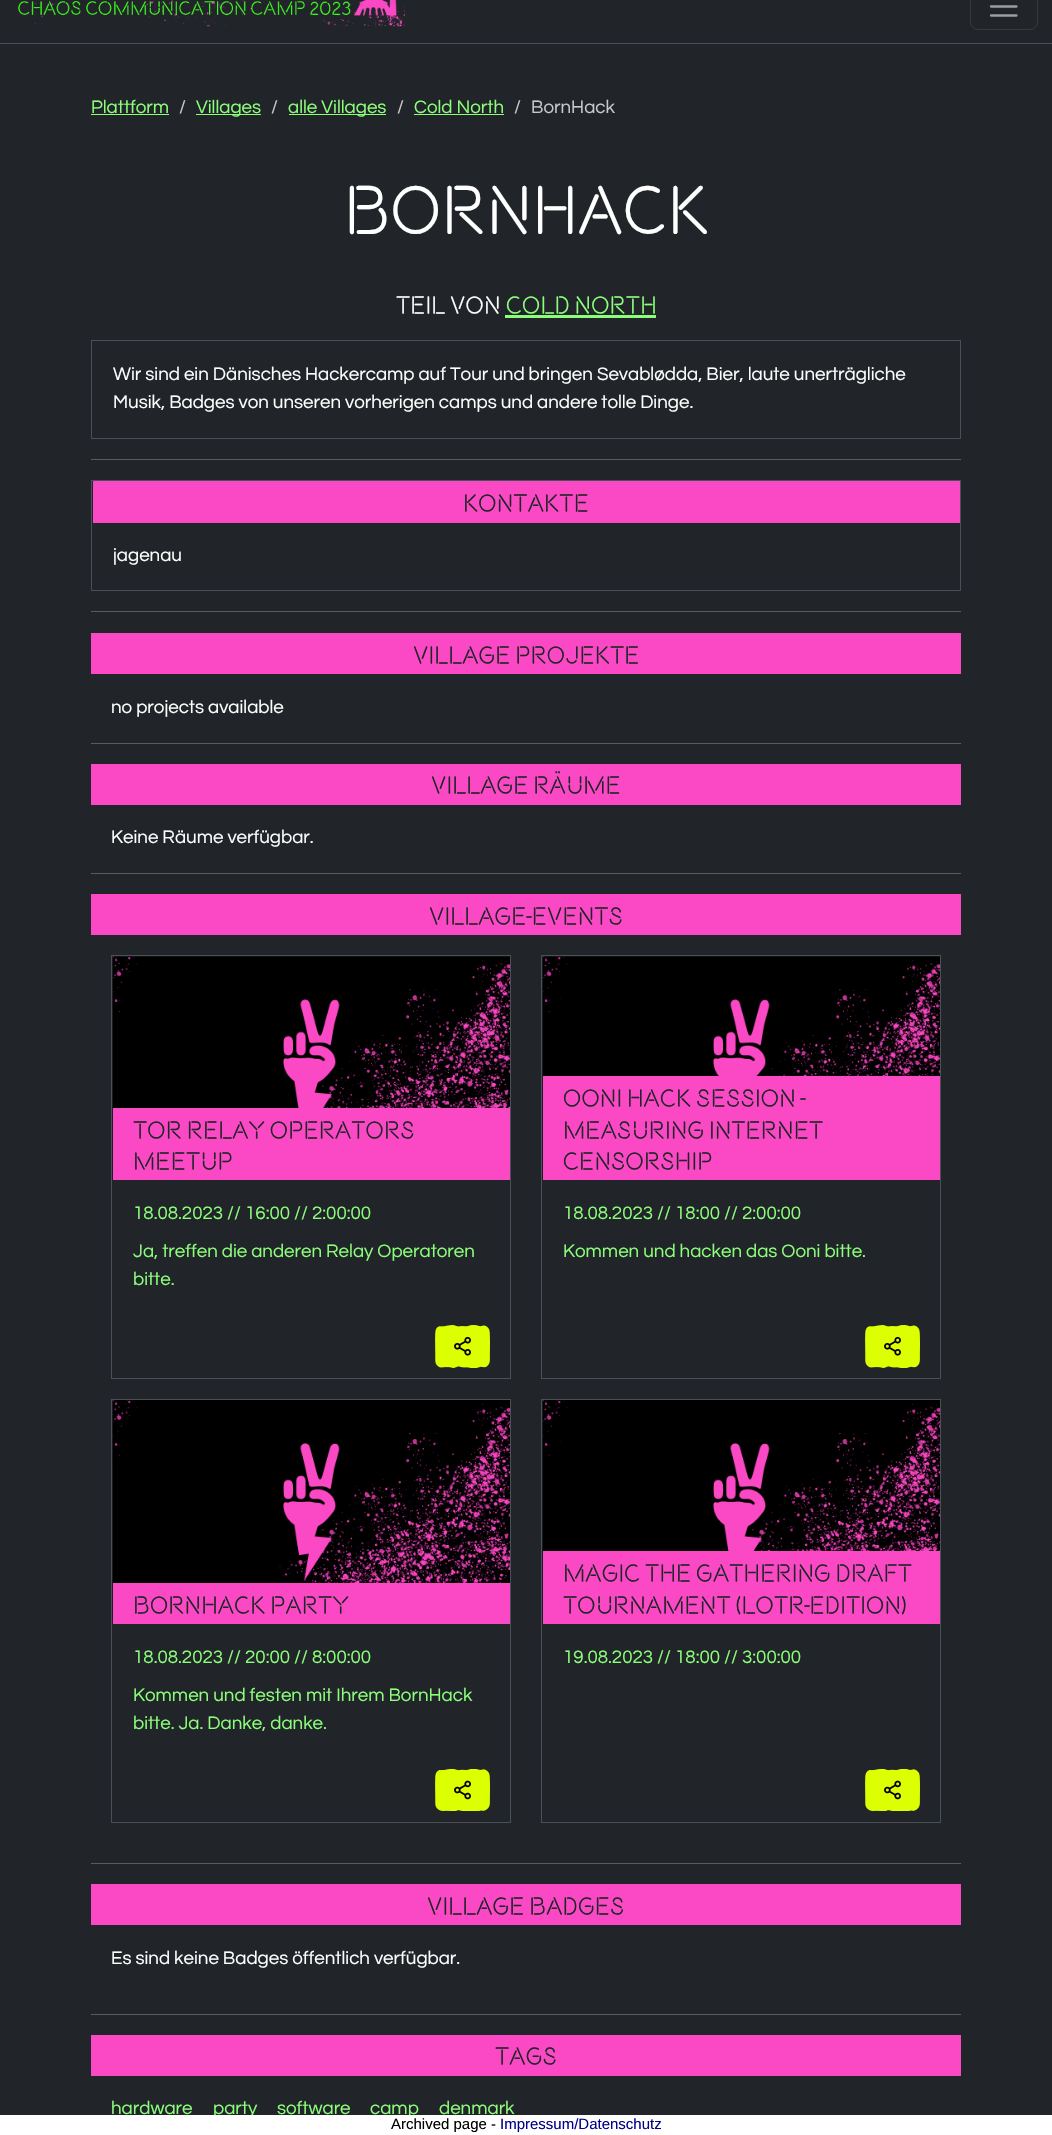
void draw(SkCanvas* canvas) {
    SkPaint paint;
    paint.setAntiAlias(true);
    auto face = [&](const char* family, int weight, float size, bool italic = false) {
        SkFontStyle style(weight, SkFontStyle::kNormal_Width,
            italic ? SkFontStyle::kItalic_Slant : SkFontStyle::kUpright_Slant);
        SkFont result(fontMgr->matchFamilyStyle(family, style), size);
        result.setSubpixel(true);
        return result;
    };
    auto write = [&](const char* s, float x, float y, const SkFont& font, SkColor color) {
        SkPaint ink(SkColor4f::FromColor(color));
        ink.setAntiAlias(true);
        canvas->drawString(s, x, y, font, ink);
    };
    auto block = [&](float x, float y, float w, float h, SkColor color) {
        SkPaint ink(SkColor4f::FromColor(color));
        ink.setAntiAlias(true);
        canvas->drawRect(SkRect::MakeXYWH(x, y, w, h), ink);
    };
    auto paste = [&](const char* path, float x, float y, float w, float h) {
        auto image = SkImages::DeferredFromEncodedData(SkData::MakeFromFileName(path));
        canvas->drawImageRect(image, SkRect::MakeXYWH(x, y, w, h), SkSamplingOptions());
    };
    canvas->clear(SkColorSetRGB(33, 37, 41));
    block(0, 43, 1052, 1, SkColorSetRGB(73, 80, 87));
    paste("pic1.png", 18, 0, 387, 27);
    paint.setStyle(SkPaint::kStroke_Style);
    paint.setStrokeWidth(1);
    paint.setColor(SkColorSetRGB(55, 59, 62));
    canvas->drawRoundRect(SkRect::MakeXYWH(970.5f, -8.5f, 67, 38), 7.5f, 7.5f, paint);
    paint.setStrokeWidth(2.3f);
    paint.setStrokeCap(SkPaint::kRound_Cap);
    paint.setColor(SkColorSetRGB(155, 157, 159));
    canvas->drawPath(SkPathBuilder().moveTo(991, -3).lineTo(1016.5f, -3).moveTo(991, 6.5f).lineTo(1016.5f, 6.5f).moveTo(991, 15.5f).lineTo(1016.5f, 15.5f).detach(), paint);
    auto kFont1 = face("Questrial", 400, 18.75f);
    write("Plattform", 91, 113, kFont1, SkColorSetRGB(140, 255, 122));
    block(91, 114, 78, 1, SkColorSetRGB(140, 255, 122));
    write("/", 179, 113, kFont1, SkColorSetRGB(200, 201, 202));
    block(196, 114, 65, 1, SkColorSetRGB(140, 255, 122));
    write("Villages", 196, 113, kFont1, SkColorSetRGB(140, 255, 122));
    write("/", 271, 113, kFont1, SkColorSetRGB(200, 201, 202));
    block(289, 114, 97, 1, SkColorSetRGB(140, 255, 122));
    write("alle Villages", 288, 113, kFont1, SkColorSetRGB(140, 255, 122));
    write("/", 397, 113, kFont1, SkColorSetRGB(200, 201, 202));
    write("Cold North", 414, 113, kFont1, SkColorSetRGB(140, 255, 122));
    block(414, 114, 90, 1, SkColorSetRGB(140, 255, 122));
    write("/", 514, 113, kFont1, SkColorSetRGB(200, 201, 202));
    write("BornHack", 531, 113, kFont1, SkColorSetRGB(200, 201, 202));
    auto kFont2 = face("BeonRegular", 400, 69);
    write("BornHack", 344, 232, kFont2, SK_ColorWHITE);
    auto kFont3 = face("BeonRegular", 400, 25);
    write("Teil von", 396, 313, kFont3, SK_ColorWHITE);
    write("Cold North", 506, 313, kFont3, SkColorSetRGB(140, 255, 122));
    block(505, 315, 151, 3, SkColorSetRGB(140, 255, 122));
    paint.setStrokeWidth(1);
    paint.setStrokeCap(SkPaint::kButt_Cap);
    paint.setColor(SkColorSetRGB(73, 80, 87));
    canvas->drawRect(SkRect::MakeXYWH(91.5f, 340.5f, 869, 98), paint);
    write("Wir sind ein Dänisches Hackercamp auf Tour und bringen Sevablødda, Bier, laute unerträgliche", 113, 380, kFont1, SK_ColorWHITE);
    write("Musik, Badges von unseren vorherigen camps und andere tolle Dinge.", 113, 408, kFont1, SK_ColorWHITE);
    block(91, 459, 870, 1, SkColorSetRGB(89, 92, 95));
    canvas->drawRect(SkRect::MakeXYWH(91.5f, 480.5f, 869, 110), paint);
    block(93, 481, 867, 42, SkColorSetRGB(251, 72, 196));
    write("Kontakte", 463, 511, kFont3, SkColorSetRGB(33, 37, 41));
    write("jagenau", 113, 561, kFont1, SK_ColorWHITE);
    block(91, 611, 870, 1, SkColorSetRGB(89, 92, 95));
    block(91, 633, 870, 41, SkColorSetRGB(251, 72, 196));
    write("Village Projekte", 413, 663, kFont3, SkColorSetRGB(33, 37, 41));
    write("no projects available", 111, 713, kFont1, SK_ColorWHITE);
    block(91, 743, 870, 1, SkColorSetRGB(89, 92, 95));
    block(91, 764, 870, 41, SkColorSetRGB(251, 72, 196));
    write("Village Räume", 431, 793, kFont3, SkColorSetRGB(33, 37, 41));
    write("Keine Räume verfügbar.", 111, 843, kFont1, SK_ColorWHITE);
    block(91, 873, 870, 1, SkColorSetRGB(89, 92, 95));
    block(91, 894, 870, 41, SkColorSetRGB(251, 72, 196));
    write("Village-Events", 429, 924, kFont3, SkColorSetRGB(33, 37, 41));
    canvas->drawRect(SkRect::MakeXYWH(111.5f, 955.5f, 399, 423), paint);
    paste("pic2.png", 112, 956, 398, 224);
    block(113, 1108, 397, 72, SkColorSetRGB(251, 72, 196));
    write("Tor Relay Operators", 133, 1138, kFont3, SkColorSetRGB(33, 37, 41));
    write("Meetup", 133, 1169, kFont3, SkColorSetRGB(33, 37, 41));
    write("18.08.2023 // 16:00 // 2:00:00", 133, 1219, kFont1, SkColorSetRGB(140, 255, 122));
    write("Ja, treffen die anderen Relay Operatoren", 133, 1257, kFont1, SkColorSetRGB(140, 255, 122));
    write("bitte.", 133, 1285, kFont1, SkColorSetRGB(140, 255, 122));
    paste("pic3.png", 435, 1325, 55, 43);
    paste("pic4.png", 454, 1336, 17, 20);
    canvas->drawRect(SkRect::MakeXYWH(541.5f, 955.5f, 399, 423), paint);
    paste("pic5.png", 542, 956, 398, 224);
    block(543, 1076, 397, 104, SkColorSetRGB(251, 72, 196));
    write("Ooni Hack Session -", 563, 1106, kFont3, SkColorSetRGB(33, 37, 41));
    write("Measuring Internet", 563, 1138, kFont3, SkColorSetRGB(33, 37, 41));
    write("Censorship", 563, 1169, kFont3, SkColorSetRGB(33, 37, 41));
    write("18.08.2023 // 18:00 // 2:00:00", 563, 1219, kFont1, SkColorSetRGB(140, 255, 122));
    write("Kommen und hacken das Ooni bitte.", 563, 1257, kFont1, SkColorSetRGB(140, 255, 122));
    paste("pic3.png", 865, 1325, 55, 43);
    paste("pic4.png", 884, 1336, 17, 20);
    canvas->drawRect(SkRect::MakeXYWH(111.5f, 1399.5f, 399, 423), paint);
    paste("pic6.png", 112, 1400, 398, 224);
    block(113, 1583, 397, 41, SkColorSetRGB(251, 72, 196));
    write("BornHack Party", 133, 1613, kFont3, SkColorSetRGB(33, 37, 41));
    write("18.08.2023 // 20:00 // 8:00:00", 133, 1663, kFont1, SkColorSetRGB(140, 255, 122));
    write("Kommen und festen mit Ihrem BornHack", 133, 1701, kFont1, SkColorSetRGB(140, 255, 122));
    write("bitte. Ja. Danke, danke.", 133, 1729, kFont1, SkColorSetRGB(140, 255, 122));
    paste("pic7.png", 435, 1769, 55, 42);
    paste("pic8.png", 454, 1780, 17, 20);
    canvas->drawRect(SkRect::MakeXYWH(541.5f, 1399.5f, 399, 423), paint);
    paste("pic9.png", 542, 1400, 398, 224);
    block(543, 1551, 397, 73, SkColorSetRGB(251, 72, 196));
    write("Magic The Gathering draft", 563, 1581, kFont3, SkColorSetRGB(33, 37, 41));
    write("tournament (LOTR-edition)", 563, 1613, kFont3, SkColorSetRGB(33, 37, 41));
    write("19.08.2023 // 18:00 // 3:00:00", 563, 1663, kFont1, SkColorSetRGB(140, 255, 122));
    paste("pic7.png", 865, 1769, 55, 42);
    paste("pic8.png", 884, 1780, 17, 20);
    block(91, 1863, 870, 1, SkColorSetRGB(89, 92, 95));
    block(91, 1884, 870, 41, SkColorSetRGB(251, 72, 196));
    write("Village Badges", 427, 1914, kFont3, SkColorSetRGB(33, 37, 41));
    write("Es sind keine Badges öffentlich verfügbar.", 111, 1964, kFont1, SK_ColorWHITE);
    block(91, 2014, 870, 1, SkColorSetRGB(89, 92, 95));
    block(91, 2035, 870, 41, SkColorSetRGB(251, 72, 196));
    write("Tags", 495, 2064, kFont3, SkColorSetRGB(33, 37, 41));
    write("hardware", 111, 2114, kFont1, SkColorSetRGB(140, 255, 122));
    write("party", 213, 2114, kFont1, SkColorSetRGB(140, 255, 122));
    write("software", 277, 2114, kFont1, SkColorSetRGB(140, 255, 122));
    write("camp", 370, 2114, kFont1, SkColorSetRGB(140, 255, 122));
    write("denmark", 439, 2114, kFont1, SkColorSetRGB(140, 255, 122));
    block(0, 2115, 1052, 20, SK_ColorWHITE);
    auto kFont4 = face("Liberation Sans", 400, 15);
    write("Archived page -", 391, 2129, kFont4, SK_ColorBLACK);
    write("Impressum/Datenschutz", 500, 2129, kFont4, SkColorSetRGB(0, 0, 139));
}
